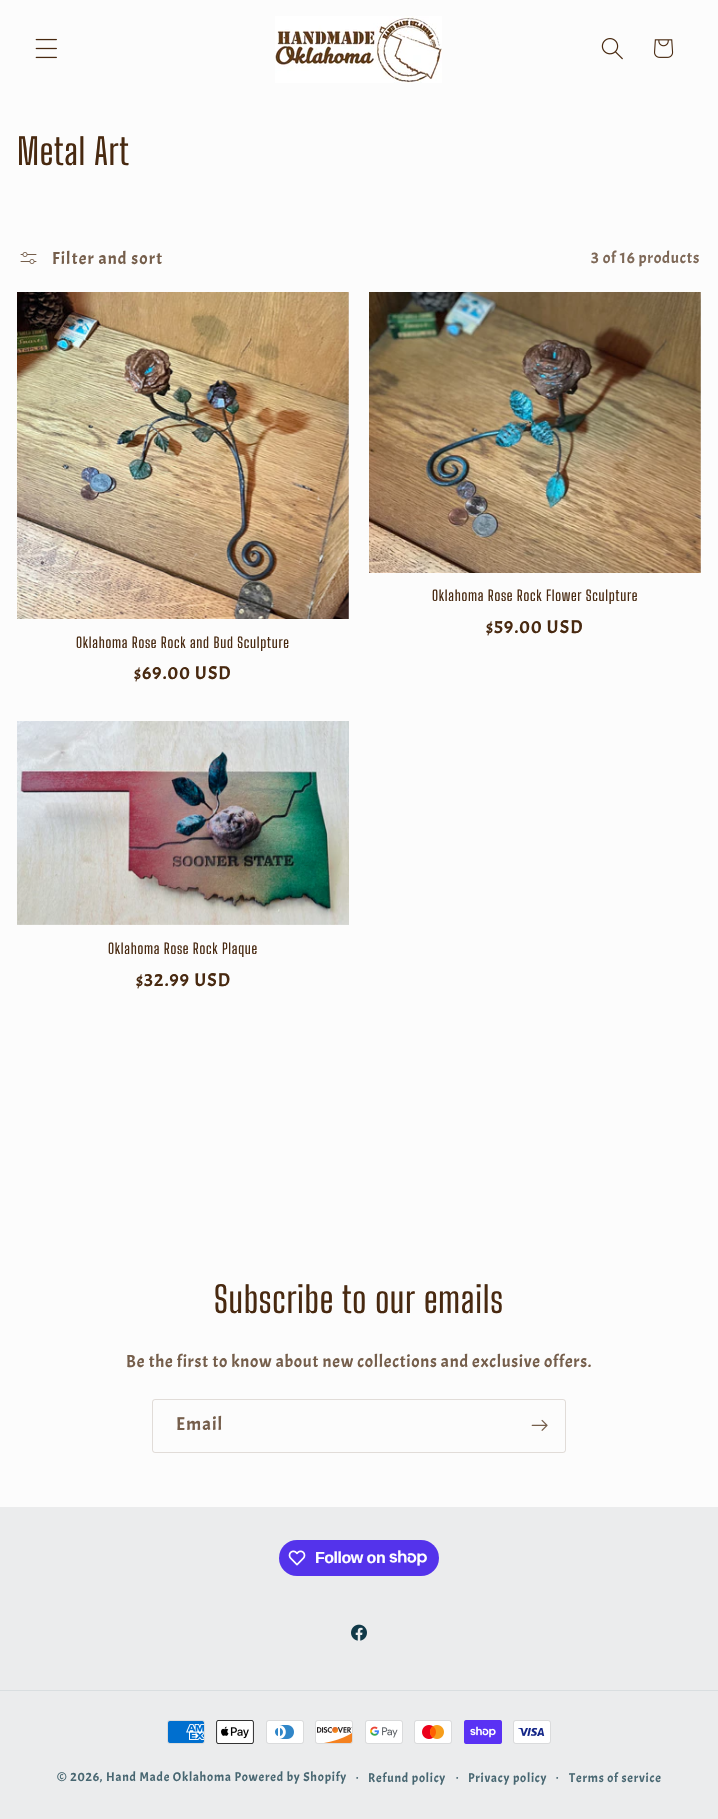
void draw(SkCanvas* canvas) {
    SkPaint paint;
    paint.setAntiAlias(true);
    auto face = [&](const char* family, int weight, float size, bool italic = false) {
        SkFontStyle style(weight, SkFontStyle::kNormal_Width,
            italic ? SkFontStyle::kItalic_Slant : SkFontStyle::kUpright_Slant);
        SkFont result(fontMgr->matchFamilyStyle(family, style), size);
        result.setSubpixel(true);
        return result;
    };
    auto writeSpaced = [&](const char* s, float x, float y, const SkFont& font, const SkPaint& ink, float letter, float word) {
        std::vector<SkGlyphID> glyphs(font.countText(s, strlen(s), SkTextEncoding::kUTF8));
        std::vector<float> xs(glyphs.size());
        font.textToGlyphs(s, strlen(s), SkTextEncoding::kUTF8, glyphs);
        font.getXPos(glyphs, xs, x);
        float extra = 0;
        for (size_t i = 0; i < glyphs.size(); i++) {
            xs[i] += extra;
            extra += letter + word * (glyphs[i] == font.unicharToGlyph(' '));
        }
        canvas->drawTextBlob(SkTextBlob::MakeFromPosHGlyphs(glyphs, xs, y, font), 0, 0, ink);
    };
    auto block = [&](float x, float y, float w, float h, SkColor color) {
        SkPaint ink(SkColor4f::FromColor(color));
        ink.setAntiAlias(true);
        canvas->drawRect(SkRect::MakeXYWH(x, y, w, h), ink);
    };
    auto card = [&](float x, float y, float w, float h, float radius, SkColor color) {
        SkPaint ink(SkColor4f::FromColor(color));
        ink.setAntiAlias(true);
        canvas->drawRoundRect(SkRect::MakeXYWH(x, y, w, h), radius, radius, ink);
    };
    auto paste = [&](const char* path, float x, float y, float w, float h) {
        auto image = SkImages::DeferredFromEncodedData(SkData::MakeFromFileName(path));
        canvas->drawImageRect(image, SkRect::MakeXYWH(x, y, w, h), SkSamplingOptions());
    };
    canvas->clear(SkColorSetRGB(252, 252, 252));
    paste("pic1.png", 35, 38, 22, 21);
    paste("pic2.png", 275, 16, 167, 67);
    paste("pic3.png", 601, 38, 22, 22);
    paste("pic4.png", 654, 39, 20, 19);
    auto kFont1 = face("Big Shoulders", 400, 36);
    paint.setColor(SkColorSetRGB(72, 41, 16));
    writeSpaced("Metal Art", 17, 165, kFont1, paint, 0.7f, 0);
    paste("pic5.png", 20, 252, 17, 12);
    auto kFont2 = face("Acme", 400, 17.25f);
    paint.setColor(SkColorSetRGB(117, 94, 75));
    writeSpaced("Filter and sort", 52, 264, kFont2, paint, 1.1f, 0);
    auto kFont3 = face("Acme", 400, 16);
    paint.setColor(SkColorSetRGB(126, 104, 87));
    writeSpaced("3 of 16 products", 591, 263, kFont3, paint, 0.7f, 0);
    paste("pic6.png", 369, 292, 332, 281);
    auto kFont4 = face("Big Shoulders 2", 400, 14.4f);
    paint.setColor(SkColorSetRGB(72, 41, 16));
    writeSpaced("Oklahoma Rose Rock Flower Sculpture", 432, 601, kFont4, paint, 0.7f, 0);
    auto kFont5 = face("Acme", 400, 18.5f);
    writeSpaced("$59.00 USD", 486, 633, kFont5, paint, 1.1f, 0);
    paste("pic7.png", 17, 292, 332, 327);
    writeSpaced("Oklahoma Rose Rock and Bud Sculpture", 76, 648, kFont4, paint, 0.7f, 0);
    writeSpaced("$69.00 USD", 134, 679, kFont5, paint, 1.1f, 0);
    paste("pic8.png", 17, 721, 332, 204);
    writeSpaced("Oklahoma Rose Rock Plaque", 108, 954, kFont4, paint, 0.7f, 0);
    writeSpaced("$32.99 USD", 136, 986, kFont5, paint, 1.1f, 0);
    writeSpaced("Subscribe to our emails", 214, 1313, kFont1, paint, 0.7f, 0);
    paint.setColor(SkColorSetRGB(117, 94, 75));
    writeSpaced("Be the first to know about new collections and exclusive offers.", 126, 1367, kFont2, paint, 0.7f, 0);
    paint.setStyle(SkPaint::kStroke_Style);
    paint.setStrokeWidth(1);
    paint.setColor(SkColorSetARGB(38, 72, 41, 16));
    canvas->drawRoundRect(SkRect::MakeXYWH(152.5f, 1399.5f, 413, 53), 2.5f, 2.5f, paint);
    paint.setStyle(SkPaint::kFill_Style);
    paint.setColor(SkColorSetRGB(117, 94, 75));
    writeSpaced("Email", 176, 1430, kFont5, paint, 1.1f, 0);
    paste("pic9.png", 531, 1419, 17, 12);
    block(0, 1507, 718, 312, SkColorSetRGB(235, 236, 237));
    card(279, 1540, 160, 36, 18, SkColorSetRGB(84, 51, 235));
    paste("pic10.png", 288, 1550, 18, 16);
    auto kFont6 = face("Liberation Sans", 700, 16);
    paint.setColor(SK_ColorWHITE);
    writeSpaced("Follow on", 315, 1563, kFont6, paint, -0.5f, 0);
    paste("pic11.png", 389, 1550, 38, 16);
    paste("pic12.png", 351, 1624, 16, 17);
    block(0, 1690, 718, 1, SkColorSetRGB(217, 222, 224));
    paste("pic13.png", 167, 1720, 38, 24);
    paste("pic14.png", 216, 1720, 38, 24);
    paste("pic15.png", 266, 1720, 38, 24);
    paste("pic16.png", 315, 1720, 38, 24);
    paste("pic17.png", 365, 1720, 38, 24);
    paste("pic18.png", 414, 1720, 38, 24);
    paste("pic19.png", 464, 1720, 38, 24);
    paste("pic20.png", 513, 1720, 38, 24);
    auto kFont7 = face("Acme", 400, 12.65f);
    paint.setColor(SkColorSetRGB(71, 102, 113));
    writeSpaced("© 2026, Hand Made Oklahoma Powered by Shopify", 57, 1781, kFont7, paint, 0.8f, 0);
    auto kFont8 = face("Acme", 400, 12);
    writeSpaced("·", 356, 1781, kFont8, paint, 0.8f, 0);
    writeSpaced("Refund policy", 368, 1782, kFont7, paint, 0.8f, 0);
    writeSpaced("·", 456, 1781, kFont8, paint, 0.8f, 0);
    writeSpaced("Privacy policy", 468, 1782, kFont7, paint, 0.8f, 0);
    writeSpaced("·", 556, 1781, kFont8, paint, 0.8f, 0);
    writeSpaced("Terms of service", 569, 1782, kFont7, paint, 0.8f, 0);
}
